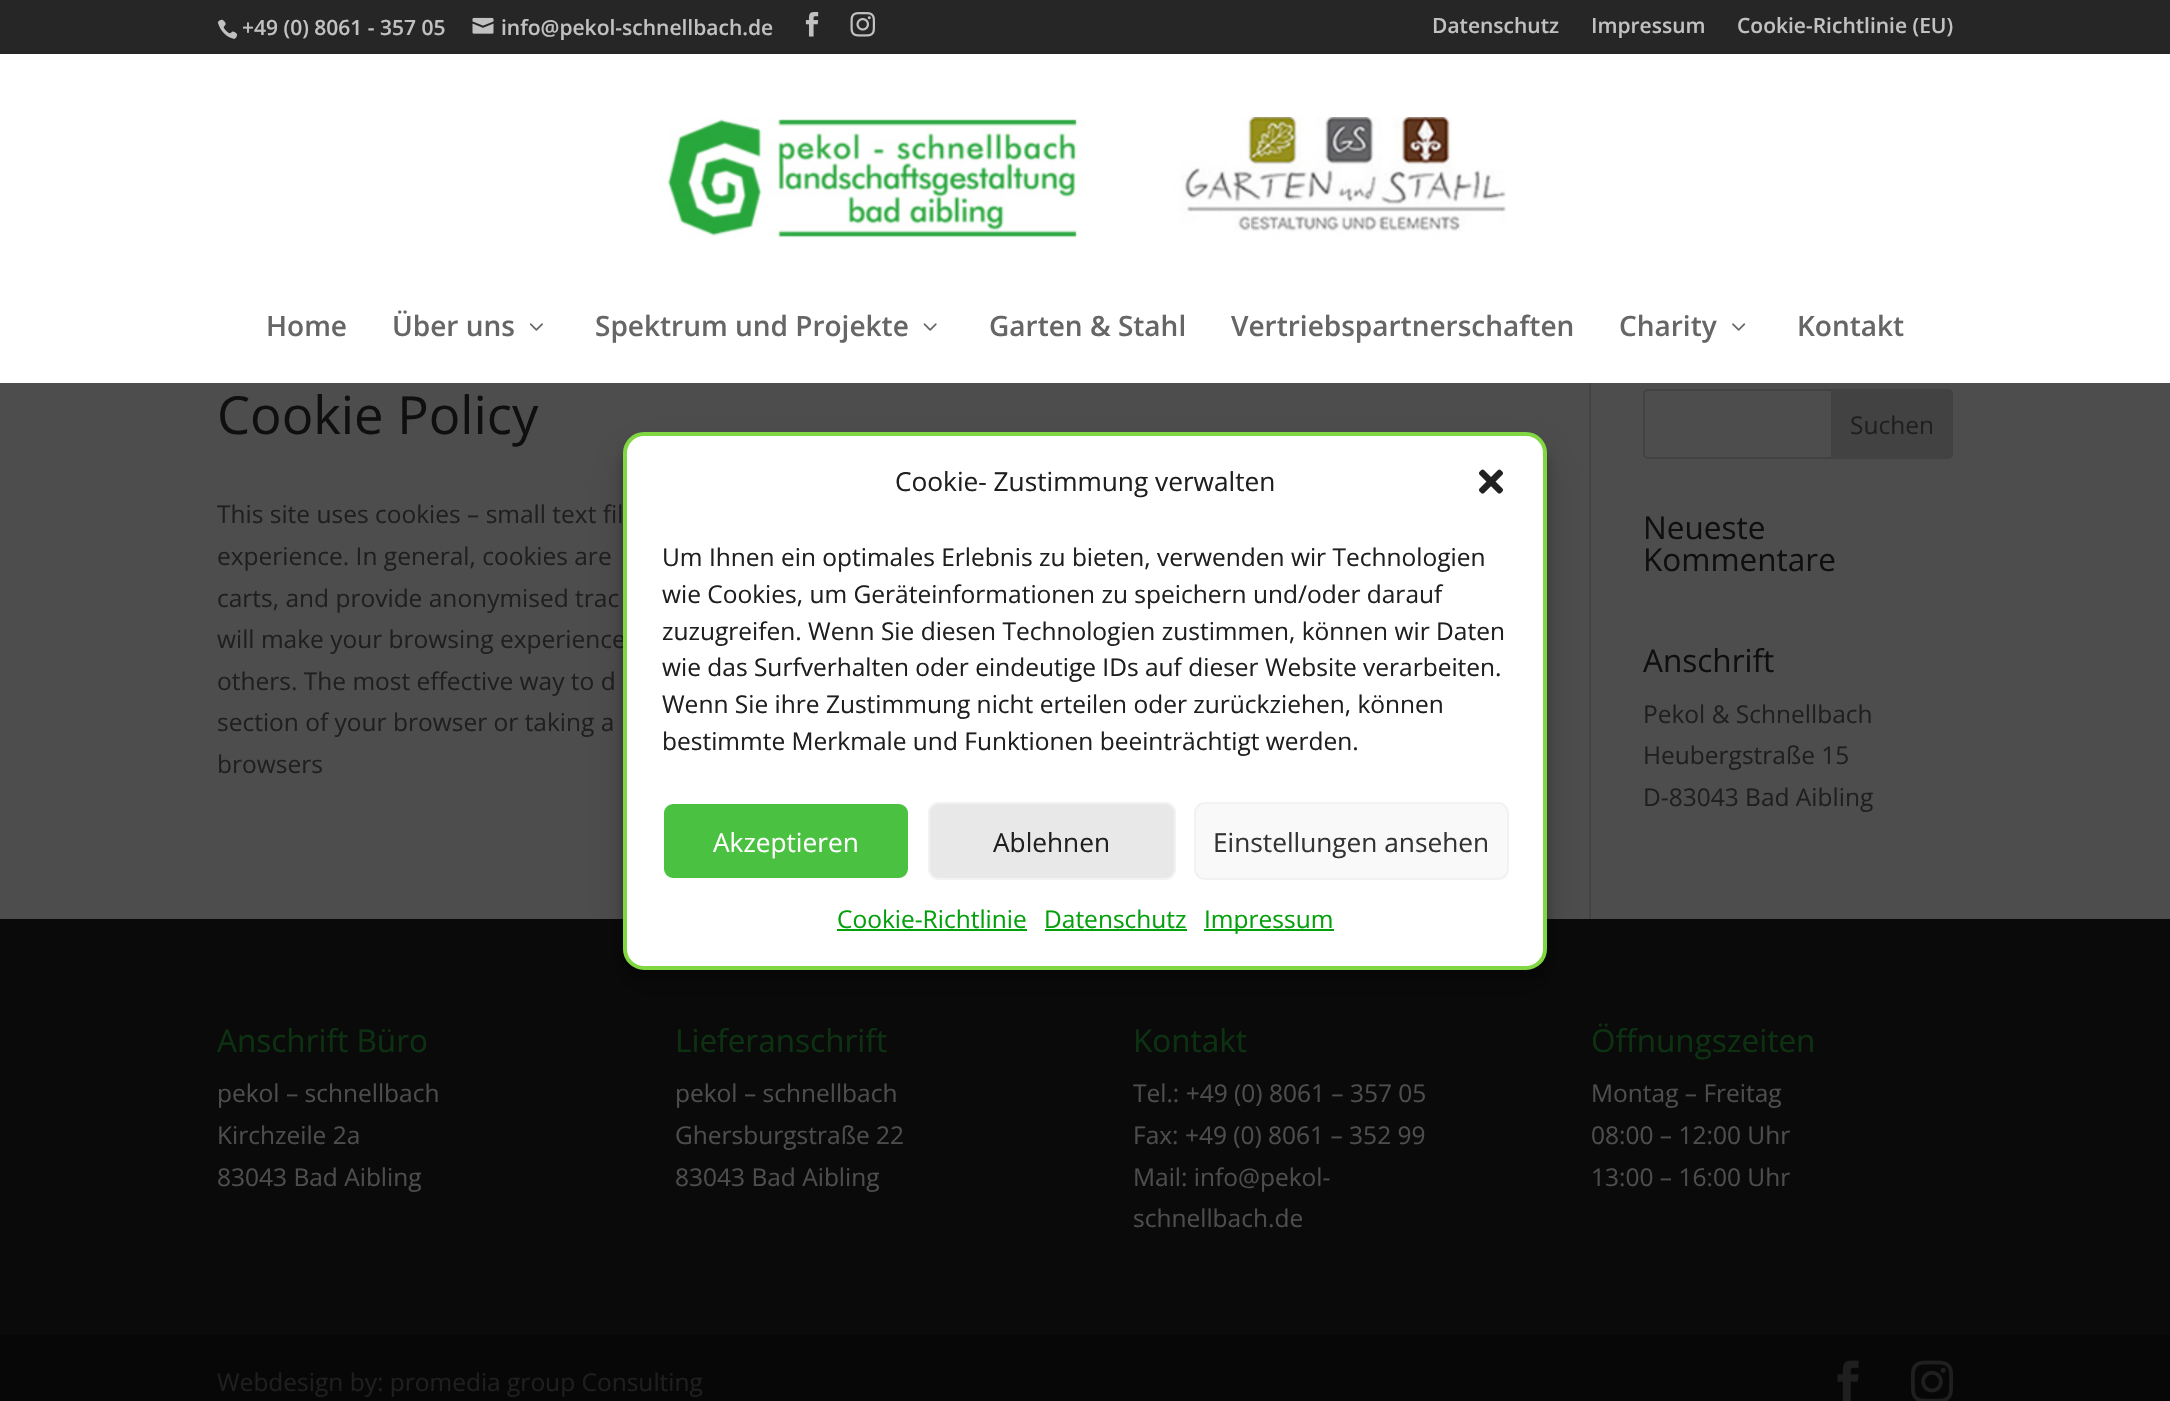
void draw(SkCanvas* canvas) {
    SkPaint paint;
    paint.setAntiAlias(true);
    auto face = [&](const char* family, int weight, float size, bool italic = false) {
        SkFontStyle style(weight, SkFontStyle::kNormal_Width,
            italic ? SkFontStyle::kItalic_Slant : SkFontStyle::kUpright_Slant);
        SkFont result(fontMgr->matchFamilyStyle(family, style), size);
        result.setSubpixel(true);
        return result;
    };
    auto write = [&](const char* s, float x, float y, const SkFont& font, SkColor color) {
        SkPaint ink(SkColor4f::FromColor(color));
        ink.setAntiAlias(true);
        canvas->drawString(s, x, y, font, ink);
    };
    auto block = [&](float x, float y, float w, float h, SkColor color) {
        SkPaint ink(SkColor4f::FromColor(color));
        ink.setAntiAlias(true);
        canvas->drawRect(SkRect::MakeXYWH(x, y, w, h), ink);
    };
    auto paste = [&](const char* path, float x, float y, float w, float h) {
        auto image = SkImages::DeferredFromEncodedData(SkData::MakeFromFileName(path));
        canvas->drawImageRect(image, SkRect::MakeXYWH(x, y, w, h), SkSamplingOptions());
    };
    canvas->clear(SkColorSetRGB(10, 10, 10));
    block(0, 0, 2170, 54, SkColorSetRGB(38, 38, 38));
    paste("pic1.png", 217, 19, 21, 20);
    auto kFont1 = face("Open Sans", 600, 21);
    write("+49 (0) 8061 - 357 05", 242, 35, kFont1, SkColorSetRGB(193, 193, 193));
    paste("pic2.png", 472, 17, 22, 17);
    write("info@pekol-schnellbach.de", 501, 35, kFont1, SkColorSetRGB(193, 193, 193));
    paste("pic3.png", 805, 12, 14, 25);
    paste("pic4.png", 850, 12, 25, 25);
    write("Datenschutz", 1432, 33, kFont1, SkColorSetRGB(193, 193, 193));
    write("Impressum", 1591, 33, kFont1, SkColorSetRGB(193, 193, 193));
    write("Cookie-Richtlinie (EU)", 1737, 33, kFont1, SkColorSetRGB(193, 193, 193));
    block(0, 54, 2170, 329, SK_ColorWHITE);
    paste("pic5.png", 667, 117, 839, 121);
    auto kFont2 = face("Open Sans", 600, 28);
    write("Home", 266, 336, kFont2, SkColorSetRGB(102, 102, 102));
    write("Über uns", 392, 336, kFont2, SkColorSetRGB(102, 102, 102));
    paste("pic6.png", 529, 323, 14, 8);
    write("Spektrum und Projekte", 595, 336, kFont2, SkColorSetRGB(102, 102, 102));
    paste("pic7.png", 923, 323, 14, 8);
    write("Garten & Stahl", 989, 336, kFont2, SkColorSetRGB(102, 102, 102));
    write("Vertriebspartnerschaften", 1231, 336, kFont2, SkColorSetRGB(102, 102, 102));
    write("Charity", 1619, 336, kFont2, SkColorSetRGB(102, 102, 102));
    paste("pic8.png", 1732, 323, 14, 8);
    write("Kontakt", 1797, 336, kFont2, SkColorSetRGB(102, 102, 102));
    block(0, 383, 2170, 536, SkColorSetRGB(77, 77, 77));
    block(1589, 383, 2, 536, SkColorSetRGB(68, 68, 68));
    auto kFont3 = face("Open Sans", 400, 52.5f);
    write("Cookie Policy", 217, 434, kFont3, SkColorSetRGB(15, 15, 15));
    auto kFont4 = face("Open Sans", 400, 24.5f);
    write("This site uses cookies – small text fil", 217, 523, kFont4, SkColorSetRGB(31, 31, 31));
    write("experience. In general, cookies are", 217, 565, kFont4, SkColorSetRGB(31, 31, 31));
    write("carts, and provide anonymised trac", 217, 607, kFont4, SkColorSetRGB(31, 31, 31));
    write("will make your browsing experience", 217, 648, kFont4, SkColorSetRGB(31, 31, 31));
    write("others. The most effective way to d", 217, 690, kFont4, SkColorSetRGB(31, 31, 31));
    write("section of your browser or taking a", 217, 731, kFont4, SkColorSetRGB(31, 31, 31));
    write("browsers", 217, 773, kFont4, SkColorSetRGB(31, 31, 31));
    paint.setStyle(SkPaint::kStroke_Style);
    paint.setStrokeWidth(2);
    paint.setColor(SkColorSetRGB(66, 66, 66));
    canvas->drawRoundRect(SkRect::MakeXYWH(1644, 390, 308, 68), 4, 4, paint);
    paint.setStyle(SkPaint::kFill_Style);
    canvas->drawPath(SkPathBuilder().moveTo(1831, 389).lineTo(1948, 389).cubicTo(1951, 389, 1953, 391, 1953, 394).lineTo(1953, 454).cubicTo(1953, 457, 1951, 459, 1948, 459).lineTo(1831, 459).close().detach(), paint);
    write("Suchen", 1850, 434, kFont4, SkColorSetRGB(31, 31, 31));
    auto kFont5 = face("Open Sans", 400, 31.5f);
    write("Neueste", 1643, 539, kFont5, SkColorSetRGB(15, 15, 15));
    write("Kommentare", 1643, 571, kFont5, SkColorSetRGB(15, 15, 15));
    write("Anschrift", 1643, 672, kFont5, SkColorSetRGB(15, 15, 15));
    write("Pekol & Schnellbach", 1643, 723, kFont4, SkColorSetRGB(31, 31, 31));
    write("Heubergstraße 15", 1643, 764, kFont4, SkColorSetRGB(31, 31, 31));
    write("D-83043 Bad Aibling", 1643, 806, kFont4, SkColorSetRGB(31, 31, 31));
    write("Anschrift Büro", 217, 1052, kFont5, SkColorSetRGB(12, 50, 18));
    write("pekol – schnellbach", 217, 1102, kFont4, SkColorSetRGB(77, 77, 77));
    write("Kirchzeile 2a", 217, 1144, kFont4, SkColorSetRGB(77, 77, 77));
    write("83043 Bad Aibling", 217, 1186, kFont4, SkColorSetRGB(77, 77, 77));
    write("Lieferanschrift", 675, 1052, kFont5, SkColorSetRGB(12, 50, 18));
    write("pekol – schnellbach", 675, 1102, kFont4, SkColorSetRGB(77, 77, 77));
    write("Ghersburgstraße 22", 675, 1144, kFont4, SkColorSetRGB(77, 77, 77));
    write("83043 Bad Aibling", 675, 1186, kFont4, SkColorSetRGB(77, 77, 77));
    write("Kontakt", 1133, 1052, kFont5, SkColorSetRGB(12, 50, 18));
    write("Tel.: +49 (0) 8061 – 357 05", 1133, 1102, kFont4, SkColorSetRGB(77, 77, 77));
    write("Fax: +49 (0) 8061 – 352 99", 1133, 1144, kFont4, SkColorSetRGB(77, 77, 77));
    write("Mail: info@pekol-", 1133, 1186, kFont4, SkColorSetRGB(77, 77, 77));
    write("schnellbach.de", 1133, 1227, kFont4, SkColorSetRGB(77, 77, 77));
    write("Öffnungszeiten", 1591, 1052, kFont5, SkColorSetRGB(12, 50, 18));
    write("Montag – Freitag", 1591, 1102, kFont4, SkColorSetRGB(77, 77, 77));
    write("08:00 – 12:00 Uhr", 1591, 1144, kFont4, SkColorSetRGB(77, 77, 77));
    write("13:00 – 16:00 Uhr", 1591, 1186, kFont4, SkColorSetRGB(77, 77, 77));
    block(0, 1335, 2170, 66, SkColorSetRGB(7, 7, 7));
    write("Webdesign by: promedia group Consulting", 217, 1391, kFont4, SkColorSetRGB(31, 31, 31));
    paste("pic9.png", 1837, 1360, 22, 41);
    paste("pic10.png", 1911, 1360, 42, 41);
    paint.setColor(SkColorSetARGB(59, 0, 0, 0));
    paint.setMaskFilter(SkMaskFilter::MakeBlur(kNormal_SkBlurStyle, 5));
    canvas->drawRoundRect(SkRect::MakeXYWH(623, 443, 924, 537), 21, 21, paint);
    paint.setMaskFilter(nullptr);
    paint.setColor(SkColorSetARGB(48, 0, 0, 0));
    paint.setMaskFilter(SkMaskFilter::MakeBlur(kNormal_SkBlurStyle, 17.5f));
    canvas->drawRoundRect(SkRect::MakeXYWH(623, 450, 924, 537), 21, 21, paint);
    paint.setMaskFilter(nullptr);
    paint.setColor(SK_ColorWHITE);
    canvas->drawRoundRect(SkRect::MakeXYWH(625, 434, 920, 534), 19, 19, paint);
    paint.setStyle(SkPaint::kStroke_Style);
    paint.setStrokeWidth(4);
    paint.setColor(SkColorSetRGB(129, 215, 66));
    canvas->drawRoundRect(SkRect::MakeXYWH(625, 434, 920, 534), 19, 19, paint);
    auto kFont6 = face("Open Sans", 400, 26.25f);
    write("Cookie- Zustimmung verwalten", 895, 491, kFont6, SkColorSetRGB(31, 31, 31));
    paste("pic11.png", 1479, 469, 24, 25);
    write("Um Ihnen ein optimales Erlebnis zu bieten, verwenden wir Technologien", 662, 566, kFont4, SkColorSetRGB(31, 31, 31));
    write("wie Cookies, um Geräteinformationen zu speichern und/oder darauf", 662, 603, kFont4, SkColorSetRGB(31, 31, 31));
    write("zuzugreifen. Wenn Sie diesen Technologien zustimmen, können wir Daten", 662, 640, kFont4, SkColorSetRGB(31, 31, 31));
    write("wie das Surfverhalten oder eindeutige IDs auf dieser Website verarbeiten.", 662, 676, kFont4, SkColorSetRGB(31, 31, 31));
    write("Wenn Sie ihre Zustimmung nicht erteilen oder zurückziehen, können", 662, 713, kFont4, SkColorSetRGB(31, 31, 31));
    write("bestimmte Merkmale und Funktionen beeinträchtigt werden.", 662, 750, kFont4, SkColorSetRGB(31, 31, 31));
    paint.setStyle(SkPaint::kFill_Style);
    paint.setColor(SkColorSetRGB(74, 193, 65));
    canvas->drawRoundRect(SkRect::MakeXYWH(663, 803, 246, 76), 10, 10, paint);
    paint.setStyle(SkPaint::kStroke_Style);
    paint.setStrokeWidth(2);
    paint.setColor(SK_ColorWHITE);
    canvas->drawRoundRect(SkRect::MakeXYWH(663, 803, 246, 76), 10, 10, paint);
    write("Akzeptieren", 713, 852, kFont6, SK_ColorWHITE);
    paint.setStyle(SkPaint::kFill_Style);
    paint.setColor(SkColorSetRGB(232, 232, 232));
    canvas->drawRoundRect(SkRect::MakeXYWH(929, 803, 246, 76), 10, 10, paint);
    paint.setStyle(SkPaint::kStroke_Style);
    paint.setColor(SkColorSetRGB(242, 242, 242));
    canvas->drawRoundRect(SkRect::MakeXYWH(929, 803, 246, 76), 10, 10, paint);
    write("Ablehnen", 993, 852, kFont6, SkColorSetRGB(31, 31, 31));
    paint.setStyle(SkPaint::kFill_Style);
    paint.setColor(SkColorSetRGB(249, 249, 249));
    canvas->drawRoundRect(SkRect::MakeXYWH(1195, 803, 313, 76), 10, 10, paint);
    paint.setStyle(SkPaint::kStroke_Style);
    paint.setColor(SkColorSetRGB(242, 242, 242));
    canvas->drawRoundRect(SkRect::MakeXYWH(1195, 803, 313, 76), 10, 10, paint);
    write("Einstellungen ansehen", 1213, 852, kFont6, SkColorSetRGB(51, 51, 51));
    write("Cookie-Richtlinie", 837, 928, kFont4, SkColorSetRGB(4, 160, 12));
    block(837, 929, 190, 2, SkColorSetRGB(4, 160, 12));
    write("Datenschutz", 1044, 928, kFont4, SkColorSetRGB(4, 160, 12));
    block(1045, 929, 142, 2, SkColorSetRGB(4, 160, 12));
    block(1204, 929, 130, 2, SkColorSetRGB(4, 160, 12));
    write("Impressum", 1204, 928, kFont4, SkColorSetRGB(4, 160, 12));
}
